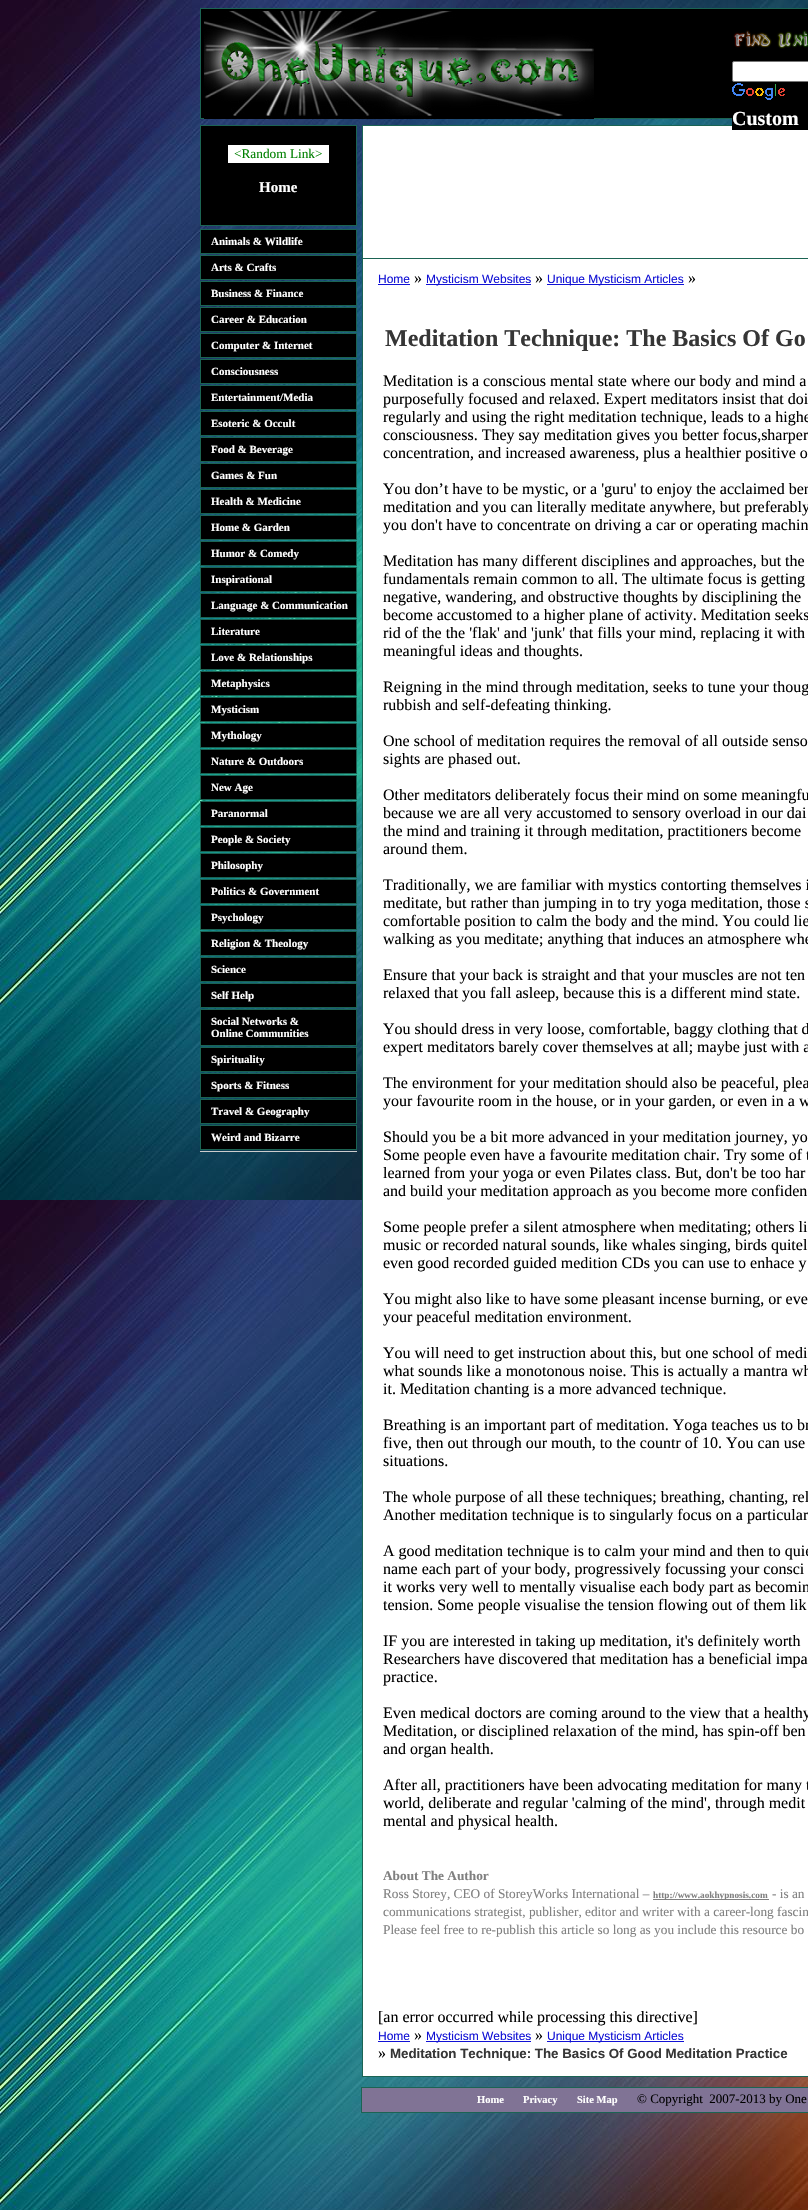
void draw(SkCanvas* canvas) {
    SkPaint paint;
    paint.setAntiAlias(true);
    auto face = [&](const char* family, int weight, float size, bool italic = false) {
        SkFontStyle style(weight, SkFontStyle::kNormal_Width,
            italic ? SkFontStyle::kItalic_Slant : SkFontStyle::kUpright_Slant);
        SkFont result(fontMgr->matchFamilyStyle(family, style), size);
        result.setSubpixel(true);
        return result;
    };
    auto write = [&](const char* s, float x, float y, const SkFont& font, SkColor color) {
        SkPaint ink(SkColor4f::FromColor(color));
        ink.setAntiAlias(true);
        canvas->drawString(s, x, y, font, ink);
    };
    auto block = [&](float x, float y, float w, float h, SkColor color) {
        SkPaint ink(SkColor4f::FromColor(color));
        ink.setAntiAlias(true);
        canvas->drawRect(SkRect::MakeXYWH(x, y, w, h), ink);
    };
    auto paste = [&](const char* path, float x, float y, float w, float h) {
        auto image = SkImages::DeferredFromEncodedData(SkData::MakeFromFileName(path));
        canvas->drawImageRect(image, SkRect::MakeXYWH(x, y, w, h), SkSamplingOptions());
    };
    canvas->clear(SK_ColorWHITE);
    paste("pic1.png", 0, 0, 808, 2210);
    paste("pic2.png", 200, 119, 532, 240);
    paint.setColor(SK_ColorBLACK);
    canvas->drawRect(SkRect::MakeXYWH(200.5f, 8.5f, 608, 110), paint);
    paint.setStyle(SkPaint::kStroke_Style);
    paint.setStrokeWidth(1);
    paint.setColor(SkColorSetRGB(27, 100, 83));
    canvas->drawRect(SkRect::MakeXYWH(200.5f, 8.5f, 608, 110), paint);
    paste("pic3.png", 204, 11, 390, 108);
    paste("pic4.png", 733, 30, 75, 19);
    paint.setStyle(SkPaint::kFill_Style);
    paint.setColor(SK_ColorWHITE);
    canvas->drawRect(SkRect::MakeXYWH(362.5f, 125.5f, 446, 133), paint);
    paint.setStyle(SkPaint::kStroke_Style);
    paint.setColor(SkColorSetRGB(27, 100, 83));
    canvas->drawRect(SkRect::MakeXYWH(362.5f, 125.5f, 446, 133), paint);
    block(732, 118, 76, 12, SK_ColorBLACK);
    paint.setStyle(SkPaint::kFill_Style);
    paint.setColor(SK_ColorWHITE);
    canvas->drawRoundRect(SkRect::MakeXYWH(732.5f, 61.5f, 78, 20), 1.5f, 1.5f, paint);
    paint.setStyle(SkPaint::kStroke_Style);
    paint.setColor(SkColorSetRGB(118, 118, 118));
    canvas->drawRoundRect(SkRect::MakeXYWH(732.5f, 61.5f, 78, 20), 1.5f, 1.5f, paint);
    paste("pic5.png", 732, 83, 53, 17);
    auto kFont1 = face("Liberation Serif", 700, 20);
    write("Custom", 732, 125, kFont1, SK_ColorWHITE);
    paint.setStyle(SkPaint::kFill_Style);
    paint.setColor(SK_ColorBLACK);
    canvas->drawRect(SkRect::MakeXYWH(200.5f, 125.5f, 156, 100), paint);
    paint.setStyle(SkPaint::kStroke_Style);
    paint.setColor(SkColorSetRGB(27, 100, 83));
    canvas->drawRect(SkRect::MakeXYWH(200.5f, 125.5f, 156, 100), paint);
    block(228, 145, 101, 18, SK_ColorWHITE);
    auto kFont2 = face("Liberation Serif", 400, 13.3f);
    write("<Random Link>", 234, 158, kFont2, SkColorSetRGB(0, 128, 0));
    auto kFont3 = face("Liberation Serif", 700, 15);
    write("Home", 259, 192, kFont3, SK_ColorWHITE);
    block(200, 1151, 157, 1, SkColorSetRGB(204, 204, 204));
    paint.setStyle(SkPaint::kFill_Style);
    paint.setColor(SK_ColorBLACK);
    canvas->drawRect(SkRect::MakeXYWH(200.5f, 229.5f, 156, 24), paint);
    paint.setStyle(SkPaint::kStroke_Style);
    paint.setColor(SkColorSetRGB(27, 100, 83));
    canvas->drawRect(SkRect::MakeXYWH(200.5f, 229.5f, 156, 24), paint);
    auto kFont4 = face("Liberation Serif", 700, 11);
    write("Animals & Wildlife", 211, 245, kFont4, SK_ColorWHITE);
    paint.setStyle(SkPaint::kFill_Style);
    paint.setColor(SK_ColorBLACK);
    canvas->drawRect(SkRect::MakeXYWH(200.5f, 255.5f, 156, 24), paint);
    paint.setStyle(SkPaint::kStroke_Style);
    paint.setColor(SkColorSetRGB(27, 100, 83));
    canvas->drawRect(SkRect::MakeXYWH(200.5f, 255.5f, 156, 24), paint);
    write("Arts & Crafts", 211, 271, kFont4, SK_ColorWHITE);
    paint.setStyle(SkPaint::kFill_Style);
    paint.setColor(SK_ColorBLACK);
    canvas->drawRect(SkRect::MakeXYWH(200.5f, 281.5f, 156, 24), paint);
    paint.setStyle(SkPaint::kStroke_Style);
    paint.setColor(SkColorSetRGB(27, 100, 83));
    canvas->drawRect(SkRect::MakeXYWH(200.5f, 281.5f, 156, 24), paint);
    write("Business & Finance", 211, 297, kFont4, SK_ColorWHITE);
    paint.setStyle(SkPaint::kFill_Style);
    paint.setColor(SK_ColorBLACK);
    canvas->drawRect(SkRect::MakeXYWH(200.5f, 307.5f, 156, 24), paint);
    paint.setStyle(SkPaint::kStroke_Style);
    paint.setColor(SkColorSetRGB(27, 100, 83));
    canvas->drawRect(SkRect::MakeXYWH(200.5f, 307.5f, 156, 24), paint);
    write("Career & Education", 211, 323, kFont4, SK_ColorWHITE);
    paint.setStyle(SkPaint::kFill_Style);
    paint.setColor(SK_ColorBLACK);
    canvas->drawRect(SkRect::MakeXYWH(200.5f, 333.5f, 156, 24), paint);
    paint.setStyle(SkPaint::kStroke_Style);
    paint.setColor(SkColorSetRGB(27, 100, 83));
    canvas->drawRect(SkRect::MakeXYWH(200.5f, 333.5f, 156, 24), paint);
    write("Computer & Internet", 211, 349, kFont4, SK_ColorWHITE);
    paint.setStyle(SkPaint::kFill_Style);
    paint.setColor(SK_ColorBLACK);
    canvas->drawRect(SkRect::MakeXYWH(200.5f, 359.5f, 156, 24), paint);
    paint.setStyle(SkPaint::kStroke_Style);
    paint.setColor(SkColorSetRGB(27, 100, 83));
    canvas->drawRect(SkRect::MakeXYWH(200.5f, 359.5f, 156, 24), paint);
    write("Consciousness", 211, 375, kFont4, SK_ColorWHITE);
    paint.setStyle(SkPaint::kFill_Style);
    paint.setColor(SK_ColorBLACK);
    canvas->drawRect(SkRect::MakeXYWH(200.5f, 385.5f, 156, 24), paint);
    paint.setStyle(SkPaint::kStroke_Style);
    paint.setColor(SkColorSetRGB(27, 100, 83));
    canvas->drawRect(SkRect::MakeXYWH(200.5f, 385.5f, 156, 24), paint);
    write("Entertainment/Media", 211, 401, kFont4, SK_ColorWHITE);
    paint.setStyle(SkPaint::kFill_Style);
    paint.setColor(SK_ColorBLACK);
    canvas->drawRect(SkRect::MakeXYWH(200.5f, 411.5f, 156, 24), paint);
    paint.setStyle(SkPaint::kStroke_Style);
    paint.setColor(SkColorSetRGB(27, 100, 83));
    canvas->drawRect(SkRect::MakeXYWH(200.5f, 411.5f, 156, 24), paint);
    write("Esoteric & Occult", 211, 427, kFont4, SK_ColorWHITE);
    paint.setStyle(SkPaint::kFill_Style);
    paint.setColor(SK_ColorBLACK);
    canvas->drawRect(SkRect::MakeXYWH(200.5f, 437.5f, 156, 24), paint);
    paint.setStyle(SkPaint::kStroke_Style);
    paint.setColor(SkColorSetRGB(27, 100, 83));
    canvas->drawRect(SkRect::MakeXYWH(200.5f, 437.5f, 156, 24), paint);
    write("Food & Beverage", 211, 453, kFont4, SK_ColorWHITE);
    paint.setStyle(SkPaint::kFill_Style);
    paint.setColor(SK_ColorBLACK);
    canvas->drawRect(SkRect::MakeXYWH(200.5f, 463.5f, 156, 24), paint);
    paint.setStyle(SkPaint::kStroke_Style);
    paint.setColor(SkColorSetRGB(27, 100, 83));
    canvas->drawRect(SkRect::MakeXYWH(200.5f, 463.5f, 156, 24), paint);
    write("Games & Fun", 211, 479, kFont4, SK_ColorWHITE);
    paint.setStyle(SkPaint::kFill_Style);
    paint.setColor(SK_ColorBLACK);
    canvas->drawRect(SkRect::MakeXYWH(200.5f, 489.5f, 156, 24), paint);
    paint.setStyle(SkPaint::kStroke_Style);
    paint.setColor(SkColorSetRGB(27, 100, 83));
    canvas->drawRect(SkRect::MakeXYWH(200.5f, 489.5f, 156, 24), paint);
    write("Health & Medicine", 211, 505, kFont4, SK_ColorWHITE);
    paint.setStyle(SkPaint::kFill_Style);
    paint.setColor(SK_ColorBLACK);
    canvas->drawRect(SkRect::MakeXYWH(200.5f, 515.5f, 156, 24), paint);
    paint.setStyle(SkPaint::kStroke_Style);
    paint.setColor(SkColorSetRGB(27, 100, 83));
    canvas->drawRect(SkRect::MakeXYWH(200.5f, 515.5f, 156, 24), paint);
    write("Home & Garden", 211, 531, kFont4, SK_ColorWHITE);
    paint.setStyle(SkPaint::kFill_Style);
    paint.setColor(SK_ColorBLACK);
    canvas->drawRect(SkRect::MakeXYWH(200.5f, 541.5f, 156, 24), paint);
    paint.setStyle(SkPaint::kStroke_Style);
    paint.setColor(SkColorSetRGB(27, 100, 83));
    canvas->drawRect(SkRect::MakeXYWH(200.5f, 541.5f, 156, 24), paint);
    write("Humor & Comedy", 211, 557, kFont4, SK_ColorWHITE);
    paint.setStyle(SkPaint::kFill_Style);
    paint.setColor(SK_ColorBLACK);
    canvas->drawRect(SkRect::MakeXYWH(200.5f, 567.5f, 156, 24), paint);
    paint.setStyle(SkPaint::kStroke_Style);
    paint.setColor(SkColorSetRGB(27, 100, 83));
    canvas->drawRect(SkRect::MakeXYWH(200.5f, 567.5f, 156, 24), paint);
    write("Inspirational", 211, 583, kFont4, SK_ColorWHITE);
    paint.setStyle(SkPaint::kFill_Style);
    paint.setColor(SK_ColorBLACK);
    canvas->drawRect(SkRect::MakeXYWH(200.5f, 593.5f, 156, 24), paint);
    paint.setStyle(SkPaint::kStroke_Style);
    paint.setColor(SkColorSetRGB(27, 100, 83));
    canvas->drawRect(SkRect::MakeXYWH(200.5f, 593.5f, 156, 24), paint);
    write("Language & Communication", 211, 609, kFont4, SK_ColorWHITE);
    paint.setStyle(SkPaint::kFill_Style);
    paint.setColor(SK_ColorBLACK);
    canvas->drawRect(SkRect::MakeXYWH(200.5f, 619.5f, 156, 24), paint);
    paint.setStyle(SkPaint::kStroke_Style);
    paint.setColor(SkColorSetRGB(27, 100, 83));
    canvas->drawRect(SkRect::MakeXYWH(200.5f, 619.5f, 156, 24), paint);
    write("Literature", 211, 635, kFont4, SK_ColorWHITE);
    paint.setStyle(SkPaint::kFill_Style);
    paint.setColor(SK_ColorBLACK);
    canvas->drawRect(SkRect::MakeXYWH(200.5f, 645.5f, 156, 24), paint);
    paint.setStyle(SkPaint::kStroke_Style);
    paint.setColor(SkColorSetRGB(27, 100, 83));
    canvas->drawRect(SkRect::MakeXYWH(200.5f, 645.5f, 156, 24), paint);
    write("Love & Relationships", 211, 661, kFont4, SK_ColorWHITE);
    paint.setStyle(SkPaint::kFill_Style);
    paint.setColor(SK_ColorBLACK);
    canvas->drawRect(SkRect::MakeXYWH(200.5f, 671.5f, 156, 24), paint);
    paint.setStyle(SkPaint::kStroke_Style);
    paint.setColor(SkColorSetRGB(27, 100, 83));
    canvas->drawRect(SkRect::MakeXYWH(200.5f, 671.5f, 156, 24), paint);
    write("Metaphysics", 211, 687, kFont4, SK_ColorWHITE);
    paint.setStyle(SkPaint::kFill_Style);
    paint.setColor(SK_ColorBLACK);
    canvas->drawRect(SkRect::MakeXYWH(200.5f, 697.5f, 156, 24), paint);
    paint.setStyle(SkPaint::kStroke_Style);
    paint.setColor(SkColorSetRGB(27, 100, 83));
    canvas->drawRect(SkRect::MakeXYWH(200.5f, 697.5f, 156, 24), paint);
    write("Mysticism", 211, 713, kFont4, SK_ColorWHITE);
    paint.setStyle(SkPaint::kFill_Style);
    paint.setColor(SK_ColorBLACK);
    canvas->drawRect(SkRect::MakeXYWH(200.5f, 723.5f, 156, 24), paint);
    paint.setStyle(SkPaint::kStroke_Style);
    paint.setColor(SkColorSetRGB(27, 100, 83));
    canvas->drawRect(SkRect::MakeXYWH(200.5f, 723.5f, 156, 24), paint);
    write("Mythology", 211, 739, kFont4, SK_ColorWHITE);
    paint.setStyle(SkPaint::kFill_Style);
    paint.setColor(SK_ColorBLACK);
    canvas->drawRect(SkRect::MakeXYWH(200.5f, 749.5f, 156, 24), paint);
    paint.setStyle(SkPaint::kStroke_Style);
    paint.setColor(SkColorSetRGB(27, 100, 83));
    canvas->drawRect(SkRect::MakeXYWH(200.5f, 749.5f, 156, 24), paint);
    write("Nature & Outdoors", 211, 765, kFont4, SK_ColorWHITE);
    paint.setStyle(SkPaint::kFill_Style);
    paint.setColor(SK_ColorBLACK);
    canvas->drawRect(SkRect::MakeXYWH(200.5f, 775.5f, 156, 24), paint);
    paint.setStyle(SkPaint::kStroke_Style);
    paint.setColor(SkColorSetRGB(27, 100, 83));
    canvas->drawRect(SkRect::MakeXYWH(200.5f, 775.5f, 156, 24), paint);
    write("New Age", 211, 791, kFont4, SK_ColorWHITE);
    paint.setStyle(SkPaint::kFill_Style);
    paint.setColor(SK_ColorBLACK);
    canvas->drawRect(SkRect::MakeXYWH(200.5f, 801.5f, 156, 24), paint);
    paint.setStyle(SkPaint::kStroke_Style);
    paint.setColor(SkColorSetRGB(27, 100, 83));
    canvas->drawRect(SkRect::MakeXYWH(200.5f, 801.5f, 156, 24), paint);
    write("Paranormal", 211, 817, kFont4, SK_ColorWHITE);
    paint.setStyle(SkPaint::kFill_Style);
    paint.setColor(SK_ColorBLACK);
    canvas->drawRect(SkRect::MakeXYWH(200.5f, 827.5f, 156, 24), paint);
    paint.setStyle(SkPaint::kStroke_Style);
    paint.setColor(SkColorSetRGB(27, 100, 83));
    canvas->drawRect(SkRect::MakeXYWH(200.5f, 827.5f, 156, 24), paint);
    write("People & Society", 211, 843, kFont4, SK_ColorWHITE);
    paint.setStyle(SkPaint::kFill_Style);
    paint.setColor(SK_ColorBLACK);
    canvas->drawRect(SkRect::MakeXYWH(200.5f, 853.5f, 156, 24), paint);
    paint.setStyle(SkPaint::kStroke_Style);
    paint.setColor(SkColorSetRGB(27, 100, 83));
    canvas->drawRect(SkRect::MakeXYWH(200.5f, 853.5f, 156, 24), paint);
    write("Philosophy", 211, 869, kFont4, SK_ColorWHITE);
    paint.setStyle(SkPaint::kFill_Style);
    paint.setColor(SK_ColorBLACK);
    canvas->drawRect(SkRect::MakeXYWH(200.5f, 879.5f, 156, 24), paint);
    paint.setStyle(SkPaint::kStroke_Style);
    paint.setColor(SkColorSetRGB(27, 100, 83));
    canvas->drawRect(SkRect::MakeXYWH(200.5f, 879.5f, 156, 24), paint);
    write("Politics & Government", 211, 895, kFont4, SK_ColorWHITE);
    paint.setStyle(SkPaint::kFill_Style);
    paint.setColor(SK_ColorBLACK);
    canvas->drawRect(SkRect::MakeXYWH(200.5f, 905.5f, 156, 24), paint);
    paint.setStyle(SkPaint::kStroke_Style);
    paint.setColor(SkColorSetRGB(27, 100, 83));
    canvas->drawRect(SkRect::MakeXYWH(200.5f, 905.5f, 156, 24), paint);
    write("Psychology", 211, 921, kFont4, SK_ColorWHITE);
    paint.setStyle(SkPaint::kFill_Style);
    paint.setColor(SK_ColorBLACK);
    canvas->drawRect(SkRect::MakeXYWH(200.5f, 931.5f, 156, 24), paint);
    paint.setStyle(SkPaint::kStroke_Style);
    paint.setColor(SkColorSetRGB(27, 100, 83));
    canvas->drawRect(SkRect::MakeXYWH(200.5f, 931.5f, 156, 24), paint);
    write("Religion & Theology", 211, 947, kFont4, SK_ColorWHITE);
    paint.setStyle(SkPaint::kFill_Style);
    paint.setColor(SK_ColorBLACK);
    canvas->drawRect(SkRect::MakeXYWH(200.5f, 957.5f, 156, 24), paint);
    paint.setStyle(SkPaint::kStroke_Style);
    paint.setColor(SkColorSetRGB(27, 100, 83));
    canvas->drawRect(SkRect::MakeXYWH(200.5f, 957.5f, 156, 24), paint);
    write("Science", 211, 973, kFont4, SK_ColorWHITE);
    paint.setStyle(SkPaint::kFill_Style);
    paint.setColor(SK_ColorBLACK);
    canvas->drawRect(SkRect::MakeXYWH(200.5f, 983.5f, 156, 24), paint);
    paint.setStyle(SkPaint::kStroke_Style);
    paint.setColor(SkColorSetRGB(27, 100, 83));
    canvas->drawRect(SkRect::MakeXYWH(200.5f, 983.5f, 156, 24), paint);
    write("Self Help", 211, 999, kFont4, SK_ColorWHITE);
    paint.setStyle(SkPaint::kFill_Style);
    paint.setColor(SK_ColorBLACK);
    canvas->drawRect(SkRect::MakeXYWH(200.5f, 1009.5f, 156, 36), paint);
    paint.setStyle(SkPaint::kStroke_Style);
    paint.setColor(SkColorSetRGB(27, 100, 83));
    canvas->drawRect(SkRect::MakeXYWH(200.5f, 1009.5f, 156, 36), paint);
    write("Social Networks &", 211, 1025, kFont4, SK_ColorWHITE);
    write("Online Communities", 211, 1037, kFont4, SK_ColorWHITE);
    paint.setStyle(SkPaint::kFill_Style);
    paint.setColor(SK_ColorBLACK);
    canvas->drawRect(SkRect::MakeXYWH(200.5f, 1047.5f, 156, 24), paint);
    paint.setStyle(SkPaint::kStroke_Style);
    paint.setColor(SkColorSetRGB(27, 100, 83));
    canvas->drawRect(SkRect::MakeXYWH(200.5f, 1047.5f, 156, 24), paint);
    write("Spirituality", 211, 1063, kFont4, SK_ColorWHITE);
    paint.setStyle(SkPaint::kFill_Style);
    paint.setColor(SK_ColorBLACK);
    canvas->drawRect(SkRect::MakeXYWH(200.5f, 1073.5f, 156, 24), paint);
    paint.setStyle(SkPaint::kStroke_Style);
    paint.setColor(SkColorSetRGB(27, 100, 83));
    canvas->drawRect(SkRect::MakeXYWH(200.5f, 1073.5f, 156, 24), paint);
    write("Sports & Fitness", 211, 1089, kFont4, SK_ColorWHITE);
    paint.setStyle(SkPaint::kFill_Style);
    paint.setColor(SK_ColorBLACK);
    canvas->drawRect(SkRect::MakeXYWH(200.5f, 1099.5f, 156, 24), paint);
    paint.setStyle(SkPaint::kStroke_Style);
    paint.setColor(SkColorSetRGB(27, 100, 83));
    canvas->drawRect(SkRect::MakeXYWH(200.5f, 1099.5f, 156, 24), paint);
    write("Travel & Geography", 211, 1115, kFont4, SK_ColorWHITE);
    paint.setStyle(SkPaint::kFill_Style);
    paint.setColor(SK_ColorBLACK);
    canvas->drawRect(SkRect::MakeXYWH(200.5f, 1125.5f, 156, 24), paint);
    paint.setStyle(SkPaint::kStroke_Style);
    paint.setColor(SkColorSetRGB(27, 100, 83));
    canvas->drawRect(SkRect::MakeXYWH(200.5f, 1125.5f, 156, 24), paint);
    write("Weird and Bizarre", 211, 1141, kFont4, SK_ColorWHITE);
    block(363, 259, 445, 1817, SK_ColorWHITE);
    block(362, 2076, 446, 1, SkColorSetRGB(27, 100, 83));
    block(362, 259, 1, 1818, SkColorSetRGB(27, 100, 83));
    auto kFont5 = face("Liberation Sans", 400, 12);
    write("Home", 378, 283, kFont5, SkColorSetRGB(17, 17, 213));
    block(378, 284, 32, 1, SkColorSetRGB(17, 17, 213));
    auto kFont6 = face("Liberation Serif", 400, 16);
    write("»", 414, 283, kFont6, SK_ColorBLACK);
    block(426, 284, 105, 1, SkColorSetRGB(17, 17, 213));
    write("Mysticism Websites", 426, 283, kFont5, SkColorSetRGB(17, 17, 213));
    write("»", 535, 283, kFont6, SK_ColorBLACK);
    block(547, 284, 137, 1, SkColorSetRGB(17, 17, 213));
    write("Unique Mysticism Articles", 547, 283, kFont5, SkColorSetRGB(17, 17, 213));
    write("»", 688, 283, kFont6, SK_ColorBLACK);
    auto kFont7 = face("Liberation Serif", 700, 24);
    write("Meditation Technique: The Basics Of Go", 385, 346, kFont7, SkColorSetRGB(54, 54, 54));
    write("Meditation is a conscious mental state where our body and mind a", 383, 386, kFont6, SK_ColorBLACK);
    write("purposefully focused and relaxed. Expert meditators insist that doi", 383, 404, kFont6, SK_ColorBLACK);
    write("regularly and using the right meditation technique, leads to a highe", 383, 422, kFont6, SK_ColorBLACK);
    write("consciousness. They say meditation gives you better focus,sharper", 383, 440, kFont6, SK_ColorBLACK);
    write("concentration, and increased awareness, plus a healthier positive o", 383, 458, kFont6, SK_ColorBLACK);
    write("You don’t have to be mystic, or a 'guru' to enjoy the acclaimed ben", 383, 494, kFont6, SK_ColorBLACK);
    write("meditation and you can literally meditate anywhere, but preferably", 383, 512, kFont6, SK_ColorBLACK);
    write("you don't have to concentrate on driving a car or operating machin", 383, 530, kFont6, SK_ColorBLACK);
    write("Meditation has many different disciplines and approaches, but the", 383, 566, kFont6, SK_ColorBLACK);
    write("fundamentals remain common to all. The ultimate focus is getting", 383, 584, kFont6, SK_ColorBLACK);
    write("negative, wandering, and obstructive thoughts by disciplining the", 383, 602, kFont6, SK_ColorBLACK);
    write("become accustomed to a higher plane of activity. Meditation seeks", 383, 620, kFont6, SK_ColorBLACK);
    write("rid of the the 'flak' and 'junk' that fills your mind, replacing it with", 383, 638, kFont6, SK_ColorBLACK);
    write("meaningful ideas and thoughts.", 383, 656, kFont6, SK_ColorBLACK);
    write("Reigning in the mind through meditation, seeks to tune your thoug", 383, 692, kFont6, SK_ColorBLACK);
    write("rubbish and self-defeating thinking.", 383, 710, kFont6, SK_ColorBLACK);
    write("One school of meditation requires the removal of all outside senso", 383, 746, kFont6, SK_ColorBLACK);
    write("sights are phased out.", 383, 764, kFont6, SK_ColorBLACK);
    write("Other meditators deliberately focus their mind on some meaningfu", 383, 800, kFont6, SK_ColorBLACK);
    write("because we are all very accustomed to sensory overload in our dai", 383, 818, kFont6, SK_ColorBLACK);
    write("the mind and training it through meditation, practitioners become", 383, 836, kFont6, SK_ColorBLACK);
    write("around them.", 383, 854, kFont6, SK_ColorBLACK);
    write("Traditionally, we are familiar with mystics contorting themselves i", 383, 890, kFont6, SK_ColorBLACK);
    write("meditate, but rather than jumping in to try yoga meditation, those s", 383, 908, kFont6, SK_ColorBLACK);
    write("comfortable position to calm the body and the mind. You could lie", 383, 926, kFont6, SK_ColorBLACK);
    write("walking as you meditate; anything that induces an atmosphere whe", 383, 944, kFont6, SK_ColorBLACK);
    write("Ensure that your back is straight and that your muscles are not ten", 383, 980, kFont6, SK_ColorBLACK);
    write("relaxed that you fall asleep, because this is a different mind state.", 383, 998, kFont6, SK_ColorBLACK);
    write("You should dress in very loose, comfortable, baggy clothing that d", 383, 1034, kFont6, SK_ColorBLACK);
    write("expert meditators barely cover themselves at all; maybe just with a", 383, 1052, kFont6, SK_ColorBLACK);
    write("The environment for your meditation should also be peaceful, plea", 383, 1088, kFont6, SK_ColorBLACK);
    write("your favourite room in the house, or in your garden, or even in a w", 383, 1106, kFont6, SK_ColorBLACK);
    write("Should you be a bit more advanced in your meditation journey, yo", 383, 1142, kFont6, SK_ColorBLACK);
    write("Some people even have a favourite meditation chair. Try some of t", 383, 1160, kFont6, SK_ColorBLACK);
    write("learned from your yoga or even Pilates class. But, don't be too har", 383, 1178, kFont6, SK_ColorBLACK);
    write("and build your meditation approach as you become more confiden", 383, 1196, kFont6, SK_ColorBLACK);
    write("Some people prefer a silent atmosphere when meditating; others li", 383, 1232, kFont6, SK_ColorBLACK);
    write("music or recorded natural sounds, like whales singing, birds quitel", 383, 1250, kFont6, SK_ColorBLACK);
    write("even good recorded guided medition CDs you can use to enhace y", 383, 1268, kFont6, SK_ColorBLACK);
    write("You might also like to have some pleasant incense burning, or eve", 383, 1304, kFont6, SK_ColorBLACK);
    write("your peaceful meditation environment.", 383, 1322, kFont6, SK_ColorBLACK);
    write("You will need to get instruction about this, but one school of medi", 383, 1358, kFont6, SK_ColorBLACK);
    write("what sounds like a monotonous noise. This is actually a mantra wh", 383, 1376, kFont6, SK_ColorBLACK);
    write("it. Meditation chanting is a more advanced technique.", 383, 1394, kFont6, SK_ColorBLACK);
    write("Breathing is an important part of meditation. Yoga teaches us to br", 383, 1430, kFont6, SK_ColorBLACK);
    write("five, then out through our mouth, to the countr of 10. You can use", 383, 1448, kFont6, SK_ColorBLACK);
    write("situations.", 383, 1466, kFont6, SK_ColorBLACK);
    write("The whole purpose of all these techniques; breathing, chanting, rel", 383, 1502, kFont6, SK_ColorBLACK);
    write("Another meditation technique is to singularly focus on a particular", 383, 1520, kFont6, SK_ColorBLACK);
    write("A good meditation technique is to calm your mind and then to quie", 383, 1556, kFont6, SK_ColorBLACK);
    write("name each part of your body, progressively focussing your consci", 383, 1574, kFont6, SK_ColorBLACK);
    write("it works very well to mentally visualise each body part as becomin", 383, 1592, kFont6, SK_ColorBLACK);
    write("tension. Some people visualise the tension flowing out of them lik", 383, 1610, kFont6, SK_ColorBLACK);
    write("IF you are interested in taking up meditation, it's definitely worth", 383, 1646, kFont6, SK_ColorBLACK);
    write("Researchers have discovered that meditation has a beneficial impa", 383, 1664, kFont6, SK_ColorBLACK);
    write("practice.", 383, 1682, kFont6, SK_ColorBLACK);
    write("Even medical doctors are coming around to the view that a healthy", 383, 1718, kFont6, SK_ColorBLACK);
    write("Meditation, or disciplined relaxation of the mind, has spin-off ben", 383, 1736, kFont6, SK_ColorBLACK);
    write("and organ health.", 383, 1754, kFont6, SK_ColorBLACK);
    write("After all, practitioners have been advocating meditation for many t", 383, 1790, kFont6, SK_ColorBLACK);
    write("world, deliberate and regular 'calming of the mind', through medit", 383, 1808, kFont6, SK_ColorBLACK);
    write("mental and physical health.", 383, 1826, kFont6, SK_ColorBLACK);
    auto kFont8 = face("Liberation Serif", 700, 13.3f);
    write("About The Author", 383, 1880, kFont8, SkColorSetRGB(128, 128, 128));
    write("Ross Storey, CEO of StoreyWorks International –", 383, 1898, kFont2, SkColorSetRGB(128, 128, 128));
    block(653, 1899, 116, 1, SkColorSetRGB(128, 128, 128));
    auto kFont9 = face("Liberation Serif", 700, 9.25f);
    write("http://www.aokhypnosis.com", 653, 1898, kFont9, SkColorSetRGB(128, 128, 128));
    write("- is an", 772, 1898, kFont2, SkColorSetRGB(128, 128, 128));
    write("communications strategist, publisher, editor and writer with a career-long fascin", 383, 1916, kFont2, SkColorSetRGB(128, 128, 128));
    write("Please feel free to re-publish this article so long as you include this resource bo", 383, 1934, kFont2, SkColorSetRGB(128, 128, 128));
    write("[an error occurred while processing this directive]", 378, 2022, kFont6, SK_ColorBLACK);
    write("Home", 378, 2040, kFont5, SkColorSetRGB(17, 17, 213));
    block(378, 2041, 32, 1, SkColorSetRGB(17, 17, 213));
    write("»", 414, 2040, kFont6, SK_ColorBLACK);
    block(426, 2041, 105, 1, SkColorSetRGB(17, 17, 213));
    write("Mysticism Websites", 426, 2040, kFont5, SkColorSetRGB(17, 17, 213));
    write("»", 535, 2040, kFont6, SK_ColorBLACK);
    block(547, 2041, 137, 1, SkColorSetRGB(17, 17, 213));
    write("Unique Mysticism Articles", 547, 2040, kFont5, SkColorSetRGB(17, 17, 213));
    write("»", 378, 2058, kFont6, SK_ColorBLACK);
    auto kFont10 = face("Liberation Sans", 700, 13.3f);
    write("Meditation Technique: The Basics Of Good Meditation Practice", 390, 2058, kFont10, SkColorSetRGB(54, 54, 54));
    paint.setStyle(SkPaint::kFill_Style);
    paint.setColor(SkColorSetRGB(128, 115, 149));
    canvas->drawRect(SkRect::MakeXYWH(361.5f, 2087.5f, 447, 25), paint);
    paint.setStyle(SkPaint::kStroke_Style);
    paint.setColor(SkColorSetRGB(27, 100, 83));
    canvas->drawRect(SkRect::MakeXYWH(361.5f, 2087.5f, 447, 25), paint);
    auto kFont11 = face("Liberation Serif", 700, 10.5f);
    write("Home", 477, 2103, kFont11, SK_ColorWHITE);
    write("Privacy", 523, 2103, kFont11, SK_ColorWHITE);
    write("Site Map", 577, 2103, kFont11, SK_ColorWHITE);
    auto kFont12 = face("Liberation Serif", 400, 13);
    write("© Copyright  2007-2013 by One", 637, 2103, kFont12, SK_ColorBLACK);
}
